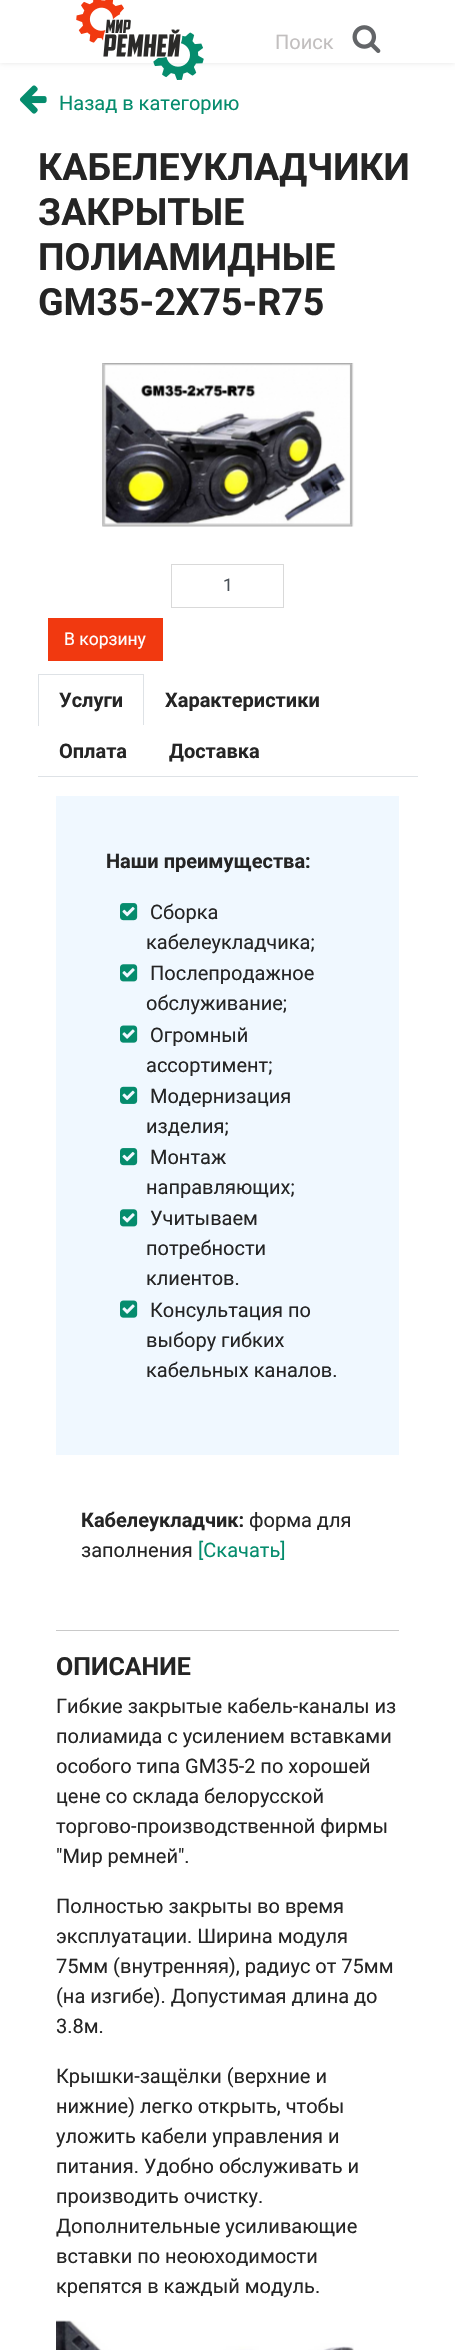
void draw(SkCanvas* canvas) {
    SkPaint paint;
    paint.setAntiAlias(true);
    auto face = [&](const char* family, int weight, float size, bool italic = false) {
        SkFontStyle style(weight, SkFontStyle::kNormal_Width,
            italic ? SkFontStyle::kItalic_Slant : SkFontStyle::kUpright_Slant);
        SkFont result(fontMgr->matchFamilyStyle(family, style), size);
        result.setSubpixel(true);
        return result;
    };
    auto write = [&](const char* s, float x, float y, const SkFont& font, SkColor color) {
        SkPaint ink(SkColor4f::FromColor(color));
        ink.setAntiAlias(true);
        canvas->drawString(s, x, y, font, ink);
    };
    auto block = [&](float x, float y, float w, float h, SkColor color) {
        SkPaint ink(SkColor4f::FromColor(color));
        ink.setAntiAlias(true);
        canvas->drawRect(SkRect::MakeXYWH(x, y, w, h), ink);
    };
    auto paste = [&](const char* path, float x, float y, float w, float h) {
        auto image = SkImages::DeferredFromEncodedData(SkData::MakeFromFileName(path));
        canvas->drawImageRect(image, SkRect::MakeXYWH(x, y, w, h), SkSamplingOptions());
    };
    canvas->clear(SK_ColorWHITE);
    paint.setColor(SkColorSetARGB(26, 0, 0, 0));
    paint.setMaskFilter(SkMaskFilter::MakeBlur(kNormal_SkBlurStyle, 2.5f));
    canvas->drawRect(SkRect::MakeXYWH(0, 0, 455, 63), paint);
    paint.setMaskFilter(nullptr);
    block(0, 0, 455, 63, SK_ColorWHITE);
    paste("pic1.png", 76, 0, 128, 80);
    auto kFont1 = face("Roboto", 400, 20);
    write("Поиск", 275, 49, kFont1, SkColorSetRGB(194, 191, 191));
    paste("pic2.png", 352, 25, 29, 28);
    paste("pic3.png", 19, 85, 28, 29);
    write("Назад в категорию", 59, 110, kFont1, SkColorSetRGB(5, 140, 109));
    auto kFont2 = face("Roboto", 700, 37.5f);
    write("КАБЕЛЕУКЛАДЧИКИ", 38, 180, kFont2, SkColorSetRGB(37, 37, 37));
    write("ЗАКРЫТЫЕ", 38, 225, kFont2, SkColorSetRGB(37, 37, 37));
    write("ПОЛИАМИДНЫЕ", 38, 270, kFont2, SkColorSetRGB(37, 37, 37));
    write("GM35-2Х75-R75", 38, 315, kFont2, SkColorSetRGB(37, 37, 37));
    paste("pic4.png", 102, 363, 252, 164);
    paint.setStyle(SkPaint::kStroke_Style);
    paint.setStrokeWidth(1);
    paint.setColor(SkColorSetRGB(217, 217, 217));
    canvas->drawRect(SkRect::MakeXYWH(171.5f, 564.5f, 112, 43), paint);
    auto kFont3 = face("Roboto", 400, 17.5f);
    write("1", 223, 591, kFont3, SkColorSetRGB(73, 80, 87));
    block(48, 618, 115, 43, SkColorSetRGB(241, 57, 16));
    write("В корзину", 64, 645, kFont3, SK_ColorWHITE);
    block(38, 776, 380, 1, SkColorSetRGB(222, 226, 230));
    block(38, 674, 106, 1, SkColorSetRGB(222, 226, 230));
    block(143, 674, 1, 52, SkColorSetRGB(222, 226, 230));
    block(143, 725, 1, 1, SK_ColorWHITE);
    block(38, 674, 1, 52, SkColorSetRGB(222, 226, 230));
    auto kFont4 = face("Roboto", 700, 20);
    write("Услуги", 59, 707, kFont4, SkColorSetRGB(37, 37, 37));
    write("Характеристики", 165, 707, kFont4, SkColorSetRGB(37, 37, 37));
    write("Оплата", 59, 758, kFont4, SkColorSetRGB(37, 37, 37));
    write("Доставка", 169, 758, kFont4, SkColorSetRGB(37, 37, 37));
    block(56, 796, 343, 659, SkColorSetRGB(240, 248, 255));
    write("Наши преимущества:", 106, 868, kFont4, SkColorSetRGB(37, 37, 37));
    paste("pic5.png", 120, 903, 18, 18);
    write("Сборка", 150, 919, kFont1, SkColorSetRGB(37, 37, 37));
    write("кабелеукладчика;", 146, 949, kFont1, SkColorSetRGB(37, 37, 37));
    paste("pic6.png", 120, 964, 18, 18);
    write("Послепродажное", 150, 980, kFont1, SkColorSetRGB(37, 37, 37));
    write("обслуживание;", 146, 1010, kFont1, SkColorSetRGB(37, 37, 37));
    paste("pic7.png", 120, 1025, 18, 18);
    write("Огромный", 150, 1042, kFont1, SkColorSetRGB(37, 37, 37));
    write("ассортимент;", 146, 1072, kFont1, SkColorSetRGB(37, 37, 37));
    paste("pic8.png", 120, 1086, 18, 18);
    write("Модернизация", 150, 1103, kFont1, SkColorSetRGB(37, 37, 37));
    write("изделия;", 146, 1133, kFont1, SkColorSetRGB(37, 37, 37));
    paste("pic5.png", 120, 1148, 18, 18);
    write("Монтаж", 150, 1164, kFont1, SkColorSetRGB(37, 37, 37));
    write("направляющих;", 146, 1194, kFont1, SkColorSetRGB(37, 37, 37));
    paste("pic6.png", 120, 1209, 18, 18);
    write("Учитываем", 150, 1225, kFont1, SkColorSetRGB(37, 37, 37));
    write("потребности", 146, 1255, kFont1, SkColorSetRGB(37, 37, 37));
    write("клиентов.", 146, 1285, kFont1, SkColorSetRGB(37, 37, 37));
    paste("pic7.png", 120, 1300, 18, 18);
    write("Консультация по", 150, 1317, kFont1, SkColorSetRGB(37, 37, 37));
    write("выбору гибких", 146, 1347, kFont1, SkColorSetRGB(37, 37, 37));
    write("кабельных каналов.", 146, 1377, kFont1, SkColorSetRGB(37, 37, 37));
    write("Кабелеукладчик:", 81, 1527, kFont4, SkColorSetRGB(37, 37, 37));
    write("форма для", 249, 1527, kFont1, SkColorSetRGB(37, 37, 37));
    write("заполнения", 81, 1557, kFont1, SkColorSetRGB(37, 37, 37));
    write("[Скачать]", 198, 1557, kFont1, SkColorSetRGB(5, 140, 109));
    block(56, 1630, 343, 1, SkColorSetRGB(201, 201, 201));
    auto kFont5 = face("Roboto", 700, 25);
    write("ОПИСАНИЕ", 56, 1675, kFont5, SkColorSetRGB(37, 37, 37));
    write("Гибкие закрытые кабель-каналы из", 56, 1713, kFont1, SkColorSetRGB(37, 37, 37));
    write("полиамида с усилением вставками", 56, 1743, kFont1, SkColorSetRGB(37, 37, 37));
    write("особого типа GM35-2 по хорошей", 56, 1773, kFont1, SkColorSetRGB(37, 37, 37));
    write("цене со склада белорусской", 56, 1803, kFont1, SkColorSetRGB(37, 37, 37));
    write("торгово-производственной фирмы", 56, 1833, kFont1, SkColorSetRGB(37, 37, 37));
    write("\"Мир ремней\".", 56, 1863, kFont1, SkColorSetRGB(37, 37, 37));
    write("Полностью закрыты во время", 56, 1913, kFont1, SkColorSetRGB(37, 37, 37));
    write("эксплуатации. Ширина модуля", 56, 1943, kFont1, SkColorSetRGB(37, 37, 37));
    write("75мм (внутренняя), радиус от 75мм", 56, 1973, kFont1, SkColorSetRGB(37, 37, 37));
    write("(на изгибе). Допустимая длина до", 56, 2003, kFont1, SkColorSetRGB(37, 37, 37));
    write("3.8м.", 56, 2033, kFont1, SkColorSetRGB(37, 37, 37));
    write("Крышки-защёлки (верхние и", 56, 2083, kFont1, SkColorSetRGB(37, 37, 37));
    write("нижние) легко открыть, чтобы", 56, 2113, kFont1, SkColorSetRGB(37, 37, 37));
    write("уложить кабели управления и", 56, 2143, kFont1, SkColorSetRGB(37, 37, 37));
    write("питания. Удобно обслуживать и", 56, 2173, kFont1, SkColorSetRGB(37, 37, 37));
    write("производить очистку.", 56, 2203, kFont1, SkColorSetRGB(37, 37, 37));
    write("Дополнительные усиливающие", 56, 2233, kFont1, SkColorSetRGB(37, 37, 37));
    write("вставки по неоюходимости", 56, 2263, kFont1, SkColorSetRGB(37, 37, 37));
    write("крепятся в каждый модуль.", 56, 2293, kFont1, SkColorSetRGB(37, 37, 37));
    paste("pic9.png", 56, 2320, 298, 30);
}
